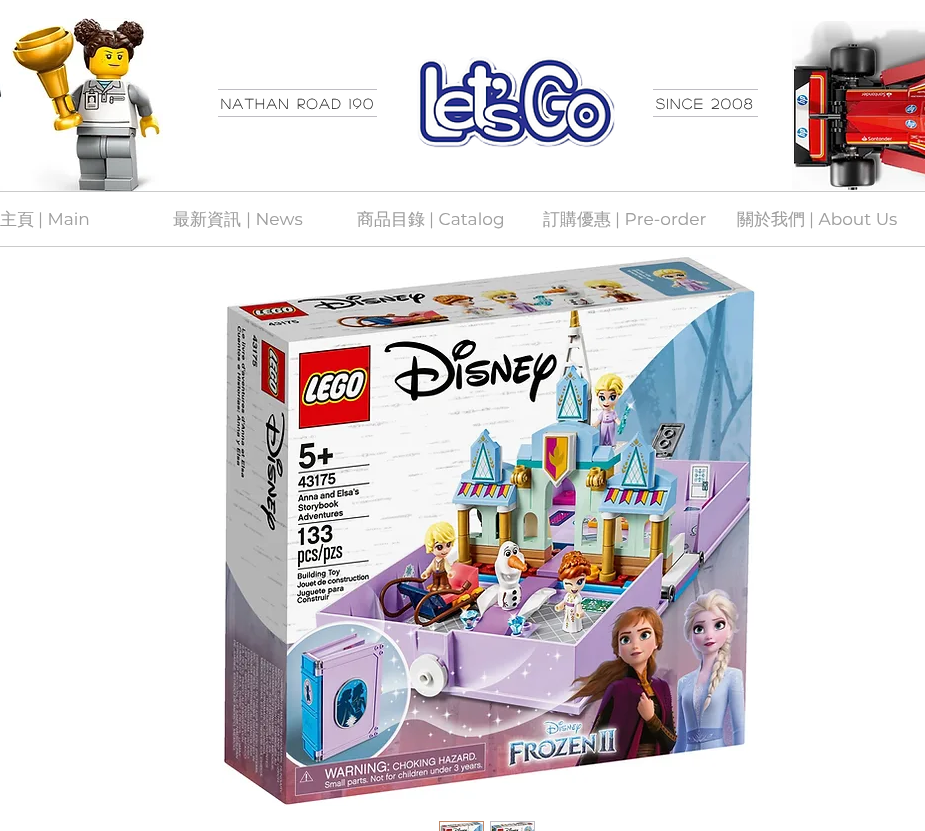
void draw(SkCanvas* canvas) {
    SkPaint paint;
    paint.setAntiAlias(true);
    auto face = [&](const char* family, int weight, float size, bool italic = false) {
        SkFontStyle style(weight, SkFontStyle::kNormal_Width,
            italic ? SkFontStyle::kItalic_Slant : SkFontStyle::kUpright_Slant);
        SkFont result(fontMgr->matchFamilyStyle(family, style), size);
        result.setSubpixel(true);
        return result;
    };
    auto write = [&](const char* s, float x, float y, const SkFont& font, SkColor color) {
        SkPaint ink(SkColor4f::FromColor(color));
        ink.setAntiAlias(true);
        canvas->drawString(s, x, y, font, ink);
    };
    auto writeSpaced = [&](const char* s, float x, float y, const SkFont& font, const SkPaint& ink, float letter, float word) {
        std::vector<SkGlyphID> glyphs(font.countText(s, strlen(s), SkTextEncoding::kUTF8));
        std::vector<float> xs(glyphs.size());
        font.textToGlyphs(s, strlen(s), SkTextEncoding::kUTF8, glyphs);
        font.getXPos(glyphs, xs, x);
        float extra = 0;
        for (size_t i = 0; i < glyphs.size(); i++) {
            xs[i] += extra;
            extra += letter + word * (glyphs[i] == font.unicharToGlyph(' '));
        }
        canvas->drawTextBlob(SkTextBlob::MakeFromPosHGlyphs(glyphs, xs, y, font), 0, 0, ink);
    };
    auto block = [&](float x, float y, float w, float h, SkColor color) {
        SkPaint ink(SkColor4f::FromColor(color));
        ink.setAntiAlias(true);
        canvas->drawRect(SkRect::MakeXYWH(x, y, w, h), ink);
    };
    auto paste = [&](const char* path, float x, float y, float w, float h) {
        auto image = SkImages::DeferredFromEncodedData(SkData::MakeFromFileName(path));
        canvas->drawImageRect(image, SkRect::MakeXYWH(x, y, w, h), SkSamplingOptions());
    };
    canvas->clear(SK_ColorWHITE);
    paste("pic1.png", 0, 18, 163, 173);
    block(218, 89, 159, 1, SkColorSetRGB(190, 188, 194));
    paste("pic2.png", 417, 56, 198, 92);
    block(653, 89, 105, 1, SkColorSetRGB(190, 188, 194));
    paste("pic3.png", 792, 21, 133, 169);
    auto kFont1 = face("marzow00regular", 700, 14);
    paint.setColor(SkColorSetRGB(41, 41, 41));
    writeSpaced("Nathan Road 190", 221, 109, kFont1, paint, 2.1f, 0);
    writeSpaced("Since 2008", 656, 109, kFont1, paint, 2.1f, 0);
    block(218, 116, 159, 1, SkColorSetRGB(190, 188, 194));
    block(653, 116, 105, 1, SkColorSetRGB(190, 188, 194));
    block(0, 191, 925, 1, SkColorSetRGB(202, 202, 202));
    block(0, 246, 925, 1, SkColorSetRGB(202, 202, 202));
    auto kFont2 = face("WenQuanYi Zen Hei", 500, 17);
    write("主頁", 0, 225, kFont2, SkColorSetRGB(158, 158, 158));
    auto kFont3 = face("Montserrat", 400, 17);
    write("| Main", 38, 225, kFont3, SkColorSetRGB(158, 158, 158));
    write("最新資訊", 173, 225, kFont2, SkColorSetRGB(158, 158, 158));
    write("| News", 246, 225, kFont3, SkColorSetRGB(158, 158, 158));
    write("商品目錄", 357, 225, kFont2, SkColorSetRGB(158, 158, 158));
    write("| Catalog", 429, 225, kFont3, SkColorSetRGB(158, 158, 158));
    write("訂購優惠", 543, 225, kFont2, SkColorSetRGB(158, 158, 158));
    write("| Pre-order", 615, 225, kFont3, SkColorSetRGB(158, 158, 158));
    write("關於我們", 737, 225, kFont2, SkColorSetRGB(158, 158, 158));
    write("| About Us", 809, 225, kFont3, SkColorSetRGB(158, 158, 158));
    paste("pic4.png", 222, 255, 537, 551);
    paint.setStyle(SkPaint::kStroke_Style);
    paint.setStrokeWidth(1);
    paint.setColor(SkColorSetRGB(191, 138, 106));
    canvas->drawRect(SkRect::MakeXYWH(439.5f, 821.5f, 44, 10), paint);
    paste("pic5.png", 440, 822, 43, 9);
    block(490, 821, 45, 10, SkColorSetRGB(190, 188, 194));
    paste("pic6.png", 491, 822, 43, 9);
}
